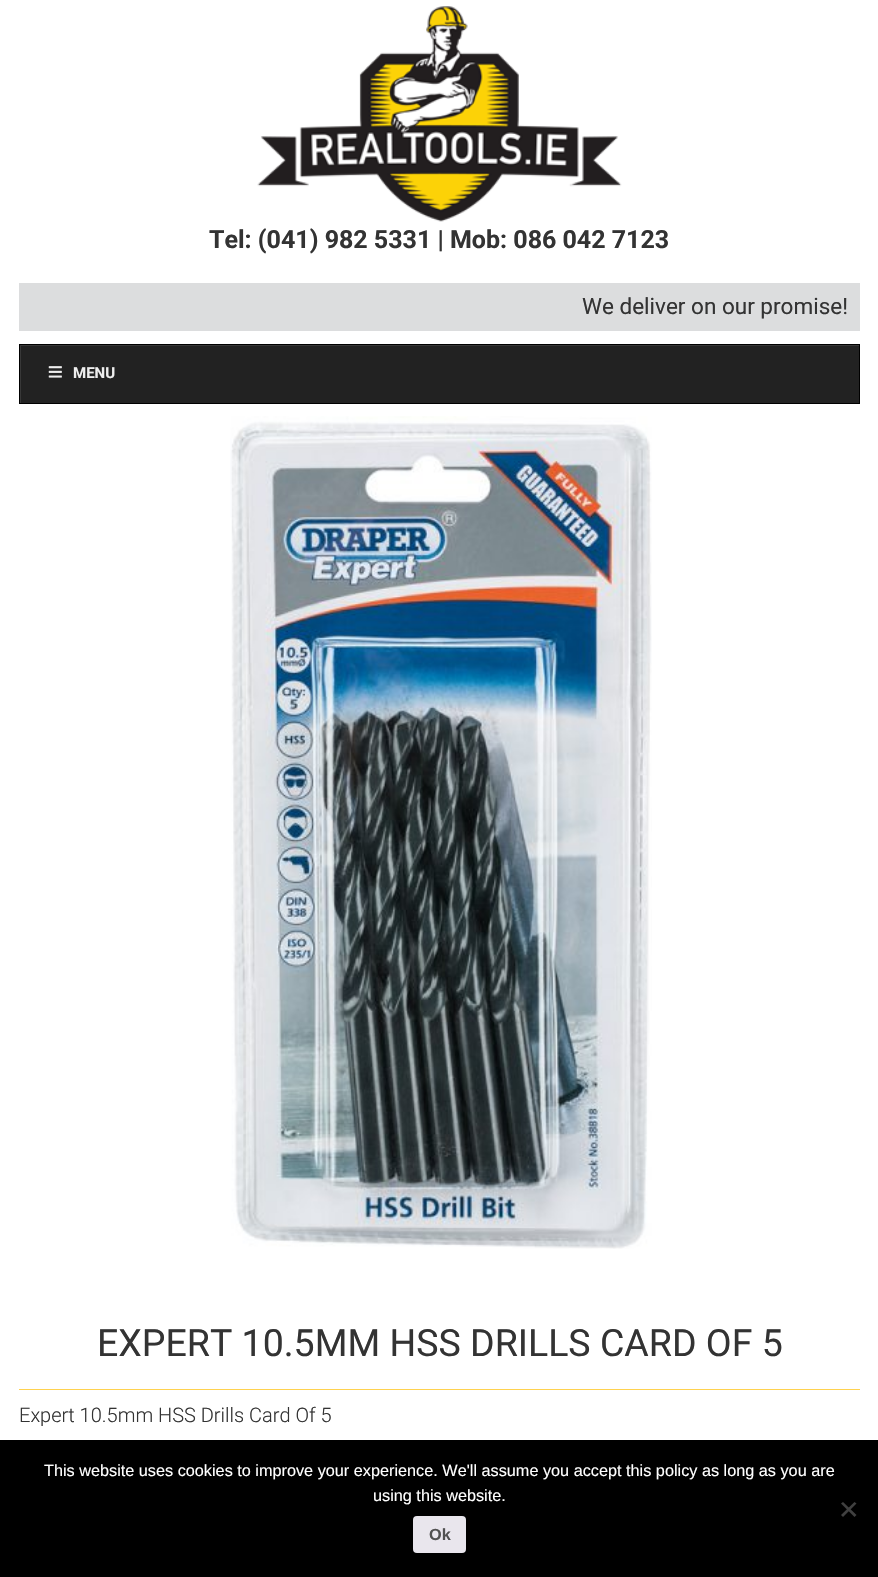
void draw(SkCanvas* canvas) {
    SkPaint paint;
    paint.setAntiAlias(true);
    auto face = [&](const char* family, int weight, float size, bool italic = false) {
        SkFontStyle style(weight, SkFontStyle::kNormal_Width,
            italic ? SkFontStyle::kItalic_Slant : SkFontStyle::kUpright_Slant);
        SkFont result(fontMgr->matchFamilyStyle(family, style), size);
        result.setSubpixel(true);
        return result;
    };
    auto write = [&](const char* s, float x, float y, const SkFont& font, SkColor color) {
        SkPaint ink(SkColor4f::FromColor(color));
        ink.setAntiAlias(true);
        canvas->drawString(s, x, y, font, ink);
    };
    auto block = [&](float x, float y, float w, float h, SkColor color) {
        SkPaint ink(SkColor4f::FromColor(color));
        ink.setAntiAlias(true);
        canvas->drawRect(SkRect::MakeXYWH(x, y, w, h), ink);
    };
    auto card = [&](float x, float y, float w, float h, float radius, SkColor color) {
        SkPaint ink(SkColor4f::FromColor(color));
        ink.setAntiAlias(true);
        canvas->drawRoundRect(SkRect::MakeXYWH(x, y, w, h), radius, radius, ink);
    };
    auto paste = [&](const char* path, float x, float y, float w, float h) {
        auto image = SkImages::DeferredFromEncodedData(SkData::MakeFromFileName(path));
        canvas->drawImageRect(image, SkRect::MakeXYWH(x, y, w, h), SkSamplingOptions());
    };
    canvas->clear(SK_ColorWHITE);
    paste("pic1.png", 257, 6, 365, 216);
    auto kFont1 = face("Roboto", 700, 25);
    write("Tel: (041) 982 5331 | Mob: 086 042 7123", 209, 248, kFont1, SkColorSetRGB(51, 51, 51));
    block(19, 283, 841, 48, SkColorSetRGB(220, 221, 222));
    auto kFont2 = face("Roboto", 400, 22.5f);
    write("We deliver on our promise!", 582, 314, kFont2, SkColorSetRGB(51, 51, 51));
    block(21, 346, 838, 57, SkColorSetRGB(34, 34, 34));
    canvas->save();
    canvas->clipRect(SkRect::MakeXYWH(20, 345, 839, 58));
    paint.setColor(SkColorSetRGB(56, 56, 56));
    canvas->drawPath(SkPathBuilder(SkPathFillType::kEvenOdd).moveTo(-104, 221).lineTo(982, 221).lineTo(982, 526).lineTo(-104, 526).close().moveTo(21, 346).lineTo(860, 346).lineTo(860, 404).lineTo(21, 404).close().detach(), paint);
    canvas->restore();
    paint.setStyle(SkPaint::kStroke_Style);
    paint.setStrokeWidth(1);
    paint.setColor(SK_ColorBLACK);
    canvas->drawRect(SkRect::MakeXYWH(19.5f, 344.5f, 840, 59), paint);
    paste("pic2.png", 48, 366, 14, 12);
    auto kFont3 = face("Roboto", 700, 15);
    write("MENU", 73, 378, kFont3, SkColorSetRGB(238, 238, 238));
    paste("pic3.png", 230, 416, 422, 833);
    block(19, 1389, 841, 1, SkColorSetRGB(255, 210, 79));
    auto kFont4 = face("Roboto", 400, 37.5f);
    write("EXPERT 10.5MM HSS DRILLS CARD OF 5", 97, 1356, kFont4, SkColorSetRGB(51, 51, 51));
    auto kFont5 = face("Roboto", 300, 20);
    write("Expert 10.5mm HSS Drills Card Of 5", 19, 1422, kFont5, SkColorSetRGB(51, 51, 51));
    block(0, 1440, 878, 137, SK_ColorBLACK);
    auto kFont6 = face("Liberation Sans", 400, 16.25f);
    write("This website uses cookies to improve your experience. We'll assume you accept this policy as long as you are", 44, 1476, kFont6, SK_ColorWHITE);
    write("using this website.", 373, 1501, kFont6, SK_ColorWHITE);
    paint.setStyle(SkPaint::kFill_Style);
    paint.setColor(SkColorSetRGB(64, 64, 64));
    canvas->drawPath(SkPathBuilder().moveTo(854.5f, 1502).lineTo(856.5f, 1503.5f).lineTo(843, 1517).lineTo(841, 1515).close().detach(), paint);
    canvas->drawPath(SkPathBuilder().moveTo(841, 1503.5f).lineTo(843, 1502).lineTo(856.5f, 1515).lineTo(854.5f, 1517).close().detach(), paint);
    card(413, 1516, 53, 37, 4, SkColorSetRGB(233, 230, 237));
    auto kFont7 = face("Liberation Sans", 700, 16.25f);
    write("Ok", 429, 1540, kFont7, SkColorSetRGB(81, 81, 81));
}
